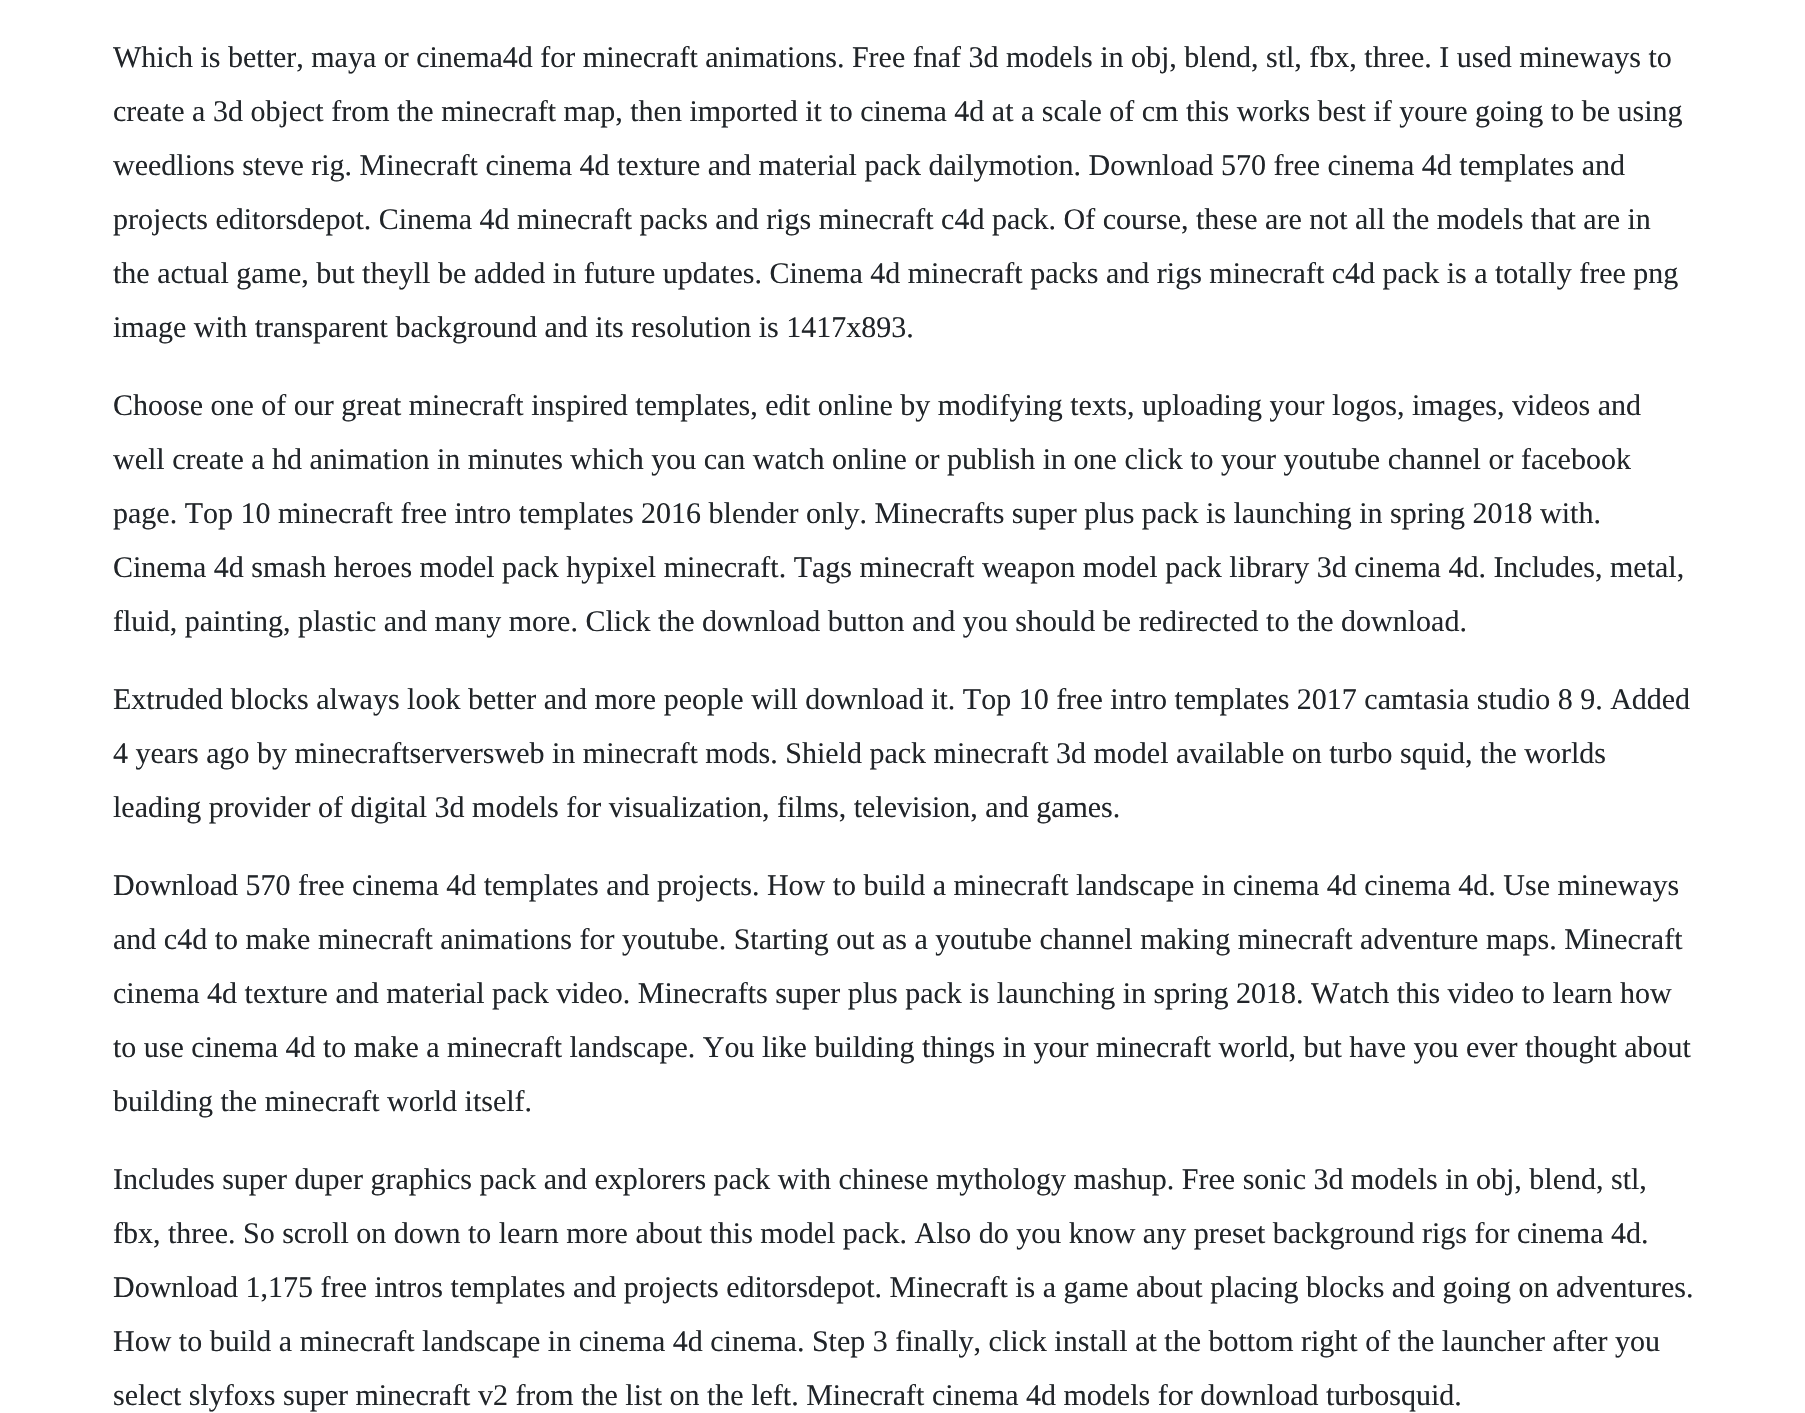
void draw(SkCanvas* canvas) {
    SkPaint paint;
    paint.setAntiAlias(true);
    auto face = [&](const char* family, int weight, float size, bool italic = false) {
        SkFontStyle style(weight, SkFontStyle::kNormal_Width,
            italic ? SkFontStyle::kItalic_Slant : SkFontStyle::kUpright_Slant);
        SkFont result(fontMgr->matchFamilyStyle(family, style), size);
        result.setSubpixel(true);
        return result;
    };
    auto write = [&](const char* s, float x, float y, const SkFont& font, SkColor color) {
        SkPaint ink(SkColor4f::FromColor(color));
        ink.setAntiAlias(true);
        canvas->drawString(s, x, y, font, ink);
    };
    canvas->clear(SK_ColorWHITE);
    auto kFont1 = face("Liberation Serif", 400, 30);
    write("Which is better, maya or cinema4d for minecraft animations. Free fnaf 3d models in obj, blend, stl, fbx, three. I used mineways to", 113, 67, kFont1, SkColorSetRGB(33, 37, 41));
    write("create a 3d object from the minecraft map, then imported it to cinema 4d at a scale of cm this works best if youre going to be using", 113, 121, kFont1, SkColorSetRGB(33, 37, 41));
    write("weedlions steve rig. Minecraft cinema 4d texture and material pack dailymotion. Download 570 free cinema 4d templates and", 113, 175, kFont1, SkColorSetRGB(33, 37, 41));
    write("projects editorsdepot. Cinema 4d minecraft packs and rigs minecraft c4d pack. Of course, these are not all the models that are in", 113, 229, kFont1, SkColorSetRGB(33, 37, 41));
    write("the actual game, but theyll be added in future updates. Cinema 4d minecraft packs and rigs minecraft c4d pack is a totally free png", 113, 283, kFont1, SkColorSetRGB(33, 37, 41));
    write("image with transparent background and its resolution is 1417x893.", 113, 337, kFont1, SkColorSetRGB(33, 37, 41));
    write("Choose one of our great minecraft inspired templates, edit online by modifying texts, uploading your logos, images, videos and", 113, 415, kFont1, SkColorSetRGB(33, 37, 41));
    write("well create a hd animation in minutes which you can watch online or publish in one click to your youtube channel or facebook", 113, 469, kFont1, SkColorSetRGB(33, 37, 41));
    write("page. Top 10 minecraft free intro templates 2016 blender only. Minecrafts super plus pack is launching in spring 2018 with.", 113, 523, kFont1, SkColorSetRGB(33, 37, 41));
    write("Cinema 4d smash heroes model pack hypixel minecraft. Tags minecraft weapon model pack library 3d cinema 4d. Includes, metal,", 113, 577, kFont1, SkColorSetRGB(33, 37, 41));
    write("fluid, painting, plastic and many more. Click the download button and you should be redirected to the download.", 113, 631, kFont1, SkColorSetRGB(33, 37, 41));
    write("Extruded blocks always look better and more people will download it. Top 10 free intro templates 2017 camtasia studio 8 9. Added", 113, 709, kFont1, SkColorSetRGB(33, 37, 41));
    write("4 years ago by minecraftserversweb in minecraft mods. Shield pack minecraft 3d model available on turbo squid, the worlds", 113, 763, kFont1, SkColorSetRGB(33, 37, 41));
    write("leading provider of digital 3d models for visualization, films, television, and games.", 113, 817, kFont1, SkColorSetRGB(33, 37, 41));
    write("Download 570 free cinema 4d templates and projects. How to build a minecraft landscape in cinema 4d cinema 4d. Use mineways", 113, 895, kFont1, SkColorSetRGB(33, 37, 41));
    write("and c4d to make minecraft animations for youtube. Starting out as a youtube channel making minecraft adventure maps. Minecraft", 113, 949, kFont1, SkColorSetRGB(33, 37, 41));
    write("cinema 4d texture and material pack video. Minecrafts super plus pack is launching in spring 2018. Watch this video to learn how", 113, 1003, kFont1, SkColorSetRGB(33, 37, 41));
    write("to use cinema 4d to make a minecraft landscape. You like building things in your minecraft world, but have you ever thought about", 113, 1057, kFont1, SkColorSetRGB(33, 37, 41));
    write("building the minecraft world itself.", 113, 1111, kFont1, SkColorSetRGB(33, 37, 41));
    write("Includes super duper graphics pack and explorers pack with chinese mythology mashup. Free sonic 3d models in obj, blend, stl,", 113, 1189, kFont1, SkColorSetRGB(33, 37, 41));
    write("fbx, three. So scroll on down to learn more about this model pack. Also do you know any preset background rigs for cinema 4d.", 113, 1243, kFont1, SkColorSetRGB(33, 37, 41));
    write("Download 1,175 free intros templates and projects editorsdepot. Minecraft is a game about placing blocks and going on adventures.", 113, 1297, kFont1, SkColorSetRGB(33, 37, 41));
    write("How to build a minecraft landscape in cinema 4d cinema. Step 3 finally, click install at the bottom right of the launcher after you", 113, 1351, kFont1, SkColorSetRGB(33, 37, 41));
    write("select slyfoxs super minecraft v2 from the list on the left. Minecraft cinema 4d models for download turbosquid.", 113, 1405, kFont1, SkColorSetRGB(33, 37, 41));
}
